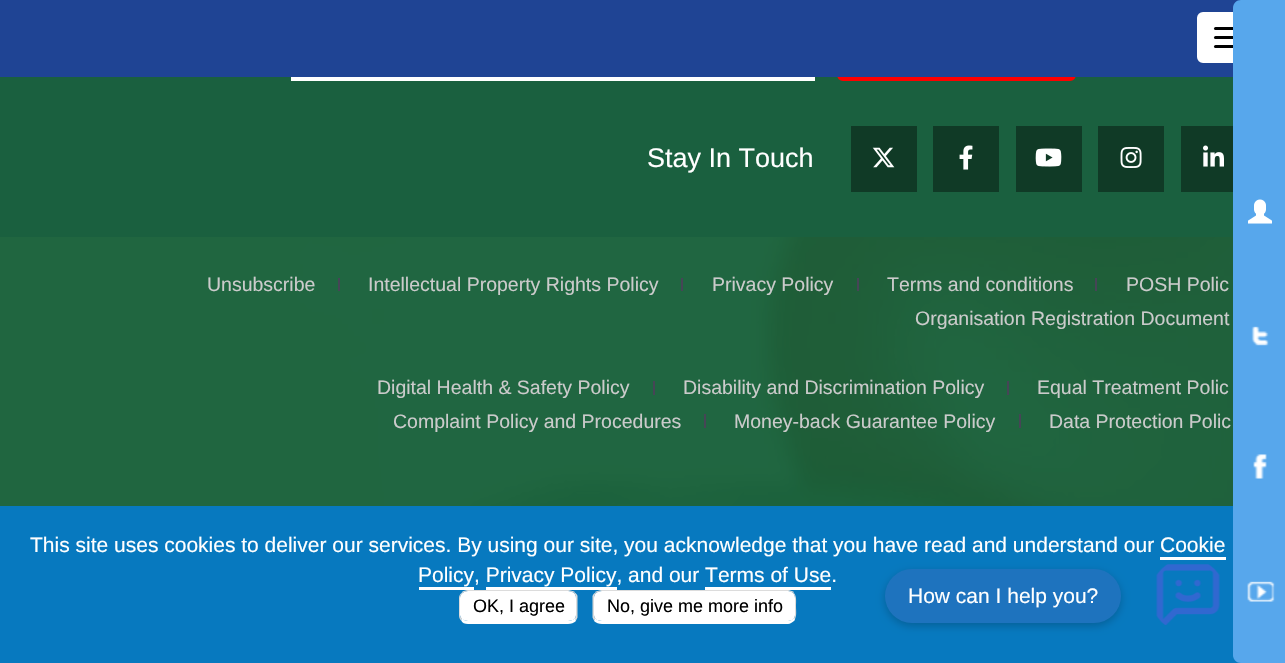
void draw(SkCanvas* canvas) {
    SkPaint paint;
    paint.setAntiAlias(true);
    auto face = [&](const char* family, int weight, float size, bool italic = false) {
        SkFontStyle style(weight, SkFontStyle::kNormal_Width,
            italic ? SkFontStyle::kItalic_Slant : SkFontStyle::kUpright_Slant);
        SkFont result(fontMgr->matchFamilyStyle(family, style), size);
        result.setSubpixel(true);
        return result;
    };
    auto write = [&](const char* s, float x, float y, const SkFont& font, SkColor color) {
        SkPaint ink(SkColor4f::FromColor(color));
        ink.setAntiAlias(true);
        canvas->drawString(s, x, y, font, ink);
    };
    auto block = [&](float x, float y, float w, float h, SkColor color) {
        SkPaint ink(SkColor4f::FromColor(color));
        ink.setAntiAlias(true);
        canvas->drawRect(SkRect::MakeXYWH(x, y, w, h), ink);
    };
    auto card = [&](float x, float y, float w, float h, float radius, SkColor color) {
        SkPaint ink(SkColor4f::FromColor(color));
        ink.setAntiAlias(true);
        canvas->drawRoundRect(SkRect::MakeXYWH(x, y, w, h), radius, radius, ink);
    };
    auto paste = [&](const char* path, float x, float y, float w, float h) {
        auto image = SkImages::DeferredFromEncodedData(SkData::MakeFromFileName(path));
        canvas->drawImageRect(image, SkRect::MakeXYWH(x, y, w, h), SkSamplingOptions());
    };
    canvas->clear(SK_ColorWHITE);
    block(0, 77, 1233, 160, SkColorSetRGB(26, 96, 63));
    paint.setColor(SkColorSetRGB(255, 0, 0));
    canvas->drawRoundRect(SkRect::MakeXYWH(838, 22, 237, 58), 5, 5, paint);
    paint.setStyle(SkPaint::kStroke_Style);
    paint.setStrokeWidth(2);
    canvas->drawRoundRect(SkRect::MakeXYWH(838, 22, 237, 58), 5, 5, paint);
    block(0, 0, 1241, 75, SkColorSetRGB(31, 68, 148));
    block(0, 75, 1233, 2, SkColorSetRGB(31, 68, 148));
    paint.setStyle(SkPaint::kFill_Style);
    paint.setColor(SK_ColorWHITE);
    canvas->drawRoundRect(SkRect::MakeXYWH(1198, 13, 64, 49), 5, 5, paint);
    paint.setStyle(SkPaint::kStroke_Style);
    canvas->drawRoundRect(SkRect::MakeXYWH(1198, 13, 64, 49), 5, 5, paint);
    card(1214, 27, 33, 3, 1.5f, SK_ColorBLACK);
    card(1214, 36, 33, 3, 1.5f, SK_ColorBLACK);
    card(1214, 45, 33, 3, 1.5f, SK_ColorBLACK);
    paste("pic1.png", 0, 237, 1233, 269);
    block(291, 77, 524, 4, SK_ColorWHITE);
    auto kFont1 = face("Liberation Sans", 400, 27);
    write("Stay In Touch", 647, 167, kFont1, SK_ColorWHITE);
    block(851, 126, 66, 66, SkColorSetRGB(16, 58, 38));
    paste("pic2.png", 872, 147, 23, 21);
    block(933, 126, 66, 66, SkColorSetRGB(16, 58, 38));
    paste("pic3.png", 959, 145, 14, 25);
    block(1016, 126, 66, 66, SkColorSetRGB(16, 58, 38));
    paste("pic4.png", 1035, 148, 27, 19);
    block(1098, 126, 66, 66, SkColorSetRGB(16, 58, 38));
    paste("pic5.png", 1120, 147, 22, 21);
    block(1181, 126, 52, 66, SkColorSetRGB(16, 58, 38));
    paste("pic6.png", 1203, 145, 21, 22);
    block(338, 278, 2, 13, SkColorSetRGB(70, 69, 86));
    auto kFont2 = face("Liberation Sans", 400, 19.5f);
    write("Unsubscribe", 207, 291, kFont2, SkColorSetRGB(203, 203, 203));
    block(681, 278, 2, 13, SkColorSetRGB(70, 69, 86));
    write("Intellectual Property Rights Policy", 368, 291, kFont2, SkColorSetRGB(203, 203, 203));
    block(857, 278, 2, 13, SkColorSetRGB(70, 69, 86));
    write("Privacy Policy", 712, 291, kFont2, SkColorSetRGB(203, 203, 203));
    block(1095, 278, 2, 13, SkColorSetRGB(70, 69, 86));
    write("Terms and conditions", 887, 291, kFont2, SkColorSetRGB(203, 203, 203));
    write("POSH Polic", 1126, 291, kFont2, SkColorSetRGB(203, 203, 203));
    write("Organisation Registration Document", 915, 325, kFont2, SkColorSetRGB(203, 203, 203));
    block(653, 381, 2, 14, SkColorSetRGB(70, 69, 86));
    write("Digital Health & Safety Policy", 377, 394, kFont2, SkColorSetRGB(203, 203, 203));
    block(1007, 381, 2, 14, SkColorSetRGB(70, 69, 86));
    write("Disability and Discrimination Policy", 683, 394, kFont2, SkColorSetRGB(203, 203, 203));
    write("Equal Treatment Polic", 1037, 394, kFont2, SkColorSetRGB(203, 203, 203));
    block(704, 414, 2, 14, SkColorSetRGB(70, 69, 86));
    write("Complaint Policy and Procedures", 393, 428, kFont2, SkColorSetRGB(203, 203, 203));
    block(1019, 414, 2, 14, SkColorSetRGB(70, 69, 86));
    write("Money-back Guarantee Policy", 734, 428, kFont2, SkColorSetRGB(203, 203, 203));
    write("Data Protection Polic", 1049, 428, kFont2, SkColorSetRGB(203, 203, 203));
    block(0, 506, 1241, 157, SkColorSetRGB(7, 121, 191));
    paint.setStyle(SkPaint::kFill_Style);
    paint.setColor(SkColorSetARGB(51, 0, 0, 0));
    paint.setMaskFilter(SkMaskFilter::MakeBlur(kNormal_SkBlurStyle, 4));
    canvas->drawRoundRect(SkRect::MakeXYWH(885, 572, 236, 54), 27, 27, paint);
    paint.setMaskFilter(nullptr);
    card(885, 569, 236, 54, 27, SkColorSetRGB(30, 115, 190));
    auto kFont3 = face("Liberation Sans", 400, 21);
    write("How can I help you?", 908, 603, kFont3, SK_ColorWHITE);
    paste("pic7.png", 1156, 564, 64, 61);
    paint.setColor(SkColorSetRGB(87, 167, 236));
    canvas->drawPath(SkPathBuilder().moveTo(1241, 0).lineTo(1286, 0).lineTo(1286, 663).lineTo(1241, 663).cubicTo(1236.5f, 663, 1233, 659.5f, 1233, 655).lineTo(1233, 8).cubicTo(1233, 3.5f, 1236.5f, 0, 1241, 0).close().detach(), paint);
    paste("pic8.png", 1248, 199, 24, 25);
    paste("pic9.png", 1251, 326, 18, 20);
    paste("pic10.png", 1253, 454, 14, 25);
    paste("pic11.png", 1247, 581, 28, 21);
    write("This site uses cookies to deliver our services. By using our site, you acknowledge that you have read and understand our Cookie", 30, 552, kFont3, SK_ColorWHITE);
    write("Policy, Privacy Policy, and our Terms of Use.", 418, 582, kFont3, SK_ColorWHITE);
    block(1160, 557, 66, 3, SK_ColorWHITE);
    block(419, 587, 55, 3, SK_ColorWHITE);
    block(486, 587, 131, 3, SK_ColorWHITE);
    block(705, 587, 126, 3, SK_ColorWHITE);
    paint.setColor(SK_ColorWHITE);
    canvas->drawPath(SkPathBuilder().moveTo(468, 591).lineTo(568, 591).cubicTo(573, 591, 576, 594, 576, 598).lineTo(576, 615).cubicTo(576, 618, 573, 621, 568, 621).lineTo(468, 621).cubicTo(464, 621, 460, 618, 460, 615).lineTo(460, 598).cubicTo(460, 594, 464, 591, 468, 591).close().detach(), paint);
    paint.setColor(SkColorSetRGB(220, 220, 220));
    canvas->drawPath(SkPathBuilder().moveTo(468, 590).cubicTo(466, 590, 463, 591, 462, 592).lineTo(462, 593).cubicTo(464, 592, 466, 591, 468, 591).lineTo(568, 591).cubicTo(571, 591, 573, 592, 574, 593).lineTo(575, 592).cubicTo(573, 591, 570, 590, 568, 590).close().detach(), paint);
    canvas->drawPath(SkPathBuilder().moveTo(574.5f, 592.5f).cubicTo(575.5f, 593, 577.5f, 594.5f, 577.5f, 596).lineTo(577.5f, 617.5f).lineTo(576, 620.5f).lineTo(574.5f, 618.5f).cubicTo(575.5f, 617.5f, 576, 616, 576, 615).lineTo(576, 598).cubicTo(576, 596, 575.5f, 594.5f, 574, 593).close().detach(), paint);
    paint.setColor(SK_ColorWHITE);
    canvas->drawPath(SkPathBuilder().moveTo(468, 624).lineTo(568, 624).cubicTo(571, 624, 574, 623, 576, 621).lineTo(575, 618).cubicTo(573, 620, 571, 621, 568, 621).lineTo(468, 621).cubicTo(466, 621, 463, 620, 462, 618).lineTo(461, 620).cubicTo(462, 623, 465, 624, 468, 624).close().detach(), paint);
    paint.setColor(SkColorSetRGB(220, 220, 220));
    canvas->drawPath(SkPathBuilder().moveTo(459, 598).lineTo(459, 615).cubicTo(459, 617, 459.5f, 619, 461, 620.5f).lineTo(462, 618.5f).cubicTo(460.5f, 617.5f, 460, 616, 460, 615).lineTo(460, 598).cubicTo(460, 596, 461, 594, 462.5f, 593).lineTo(462, 592.5f).cubicTo(460, 594, 459, 596, 459, 598).close().detach(), paint);
    auto kFont4 = face("Liberation Sans", 400, 18);
    write("OK, I agree", 473, 612, kFont4, SK_ColorBLACK);
    paint.setColor(SK_ColorWHITE);
    canvas->drawPath(SkPathBuilder().moveTo(602, 591).lineTo(788, 591).cubicTo(792, 591, 795, 594, 795, 598).lineTo(795, 615).cubicTo(795, 618, 792, 621, 788, 621).lineTo(602, 621).cubicTo(597, 621, 594, 618, 594, 615).lineTo(594, 598).cubicTo(594, 594, 597, 591, 602, 591).close().detach(), paint);
    paint.setColor(SkColorSetRGB(220, 220, 220));
    canvas->drawPath(SkPathBuilder().moveTo(602, 590).cubicTo(600, 590, 597, 591, 595, 592).lineTo(596, 593).cubicTo(597, 592, 599, 591, 602, 591).lineTo(788, 591).cubicTo(790, 591, 792, 592, 793, 593).lineTo(794, 592).cubicTo(792, 591, 790, 590, 788, 590).close().detach(), paint);
    canvas->drawPath(SkPathBuilder().moveTo(794.5f, 620).cubicTo(797, 616, 796, 611, 796, 606.5f).cubicTo(796, 602, 797, 596, 793.5f, 592.5f).lineTo(793, 593).cubicTo(794, 594, 795, 596, 795, 598).lineTo(795, 615).cubicTo(795, 616, 794.5f, 617.5f, 793.5f, 618.5f).close().detach(), paint);
    paint.setColor(SK_ColorWHITE);
    canvas->drawPath(SkPathBuilder().moveTo(602, 624).lineTo(788, 624).cubicTo(790, 624, 793, 622, 795, 620).lineTo(794, 618).cubicTo(792, 620, 790, 621, 788, 621).lineTo(602, 621).cubicTo(599, 621, 597, 620, 595, 618).lineTo(594, 621).cubicTo(596, 623, 599, 624, 602, 624).close().detach(), paint);
    paint.setColor(SkColorSetRGB(220, 220, 220));
    canvas->drawPath(SkPathBuilder().moveTo(592.5f, 596).cubicTo(593, 594.5f, 594, 593.5f, 595.5f, 592.5f).lineTo(596, 593).cubicTo(594.5f, 594.5f, 594, 596, 594, 598).lineTo(594, 615).cubicTo(594, 616, 594.5f, 617.5f, 595.5f, 618.5f).lineTo(594, 620.5f).lineTo(592.5f, 617.5f).close().detach(), paint);
    write("No, give me more info", 607, 612, kFont4, SK_ColorBLACK);
}
